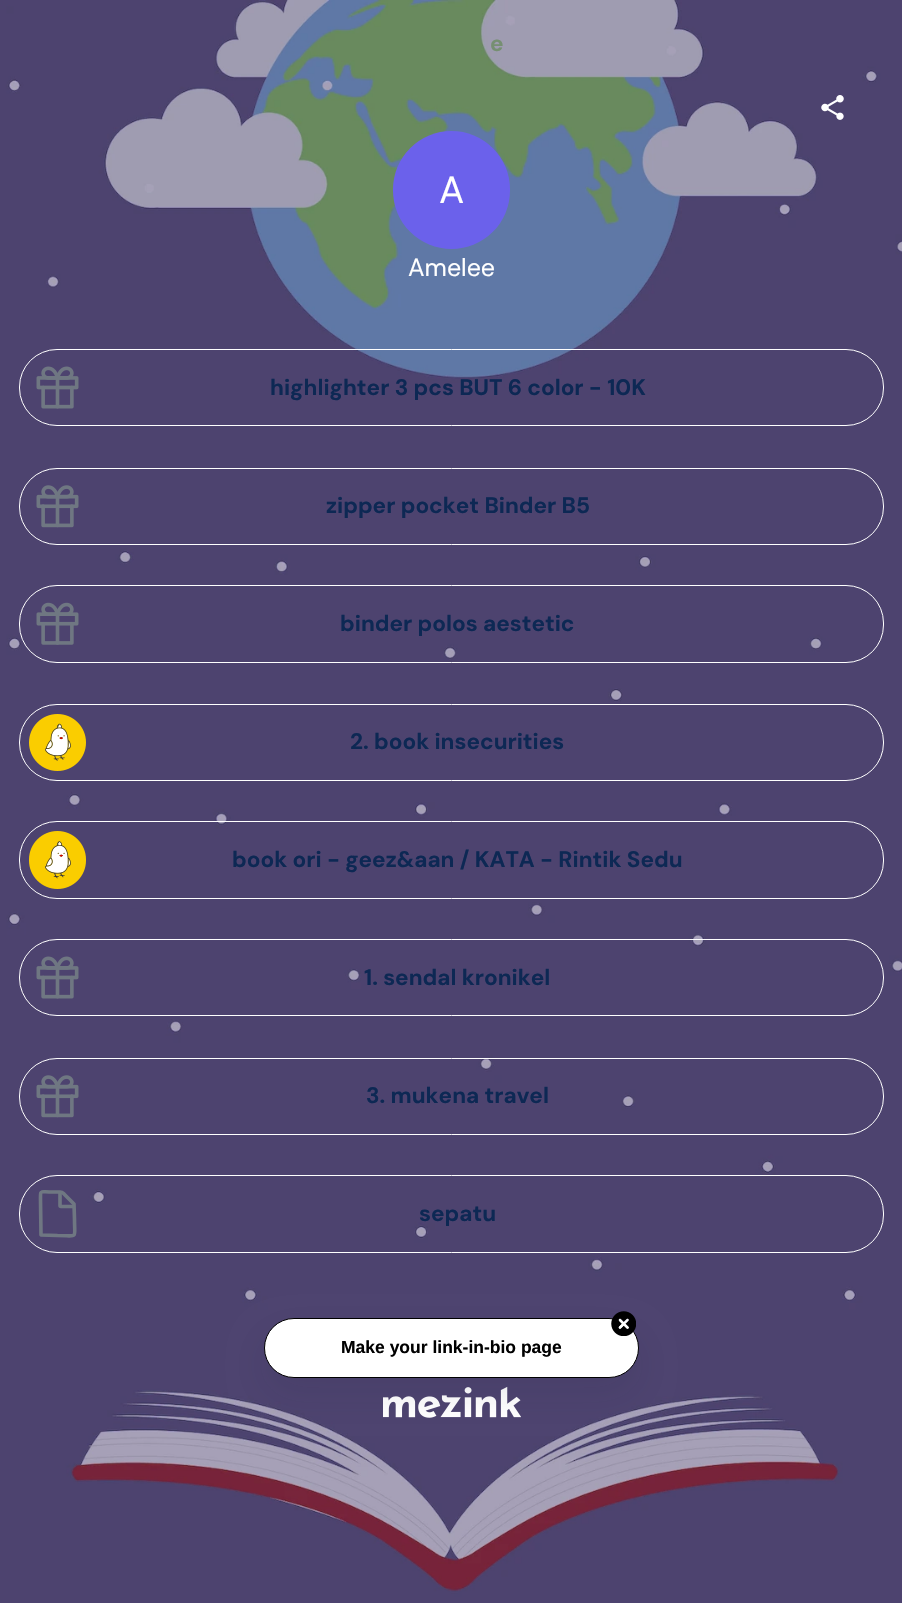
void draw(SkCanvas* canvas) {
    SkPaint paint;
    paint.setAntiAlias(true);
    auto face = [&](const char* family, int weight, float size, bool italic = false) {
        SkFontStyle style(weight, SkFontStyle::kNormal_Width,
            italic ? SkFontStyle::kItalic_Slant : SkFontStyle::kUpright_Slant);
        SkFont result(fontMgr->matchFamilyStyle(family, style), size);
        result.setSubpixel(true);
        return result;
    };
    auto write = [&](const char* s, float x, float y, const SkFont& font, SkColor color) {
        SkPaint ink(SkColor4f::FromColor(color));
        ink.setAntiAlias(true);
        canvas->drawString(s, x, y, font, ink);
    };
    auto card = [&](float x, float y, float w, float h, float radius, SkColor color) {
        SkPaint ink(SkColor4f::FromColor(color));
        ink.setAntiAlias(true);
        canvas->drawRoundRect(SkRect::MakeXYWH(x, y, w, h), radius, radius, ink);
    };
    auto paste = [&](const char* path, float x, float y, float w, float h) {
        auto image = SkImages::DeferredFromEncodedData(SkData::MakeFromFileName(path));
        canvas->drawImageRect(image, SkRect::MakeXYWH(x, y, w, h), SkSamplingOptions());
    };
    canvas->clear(SK_ColorWHITE);
    paste("pic1.png", 0, 0, 902, 1603);
    auto kFont1 = face("DM Sans", 700, 22.5f);
    write("e", 490, 51, kFont1, SkColorSetRGB(118, 143, 114));
    paste("pic2.png", 821, 95, 23, 25);
    card(393, 131, 117, 118, 58.5f, SkColorSetRGB(107, 97, 235));
    auto kFont2 = face("DM Sans", 400, 38);
    write("A", 439, 203, kFont2, SK_ColorWHITE);
    auto kFont3 = face("DM Sans", 400, 25);
    write("Amelee", 408, 276, kFont3, SK_ColorWHITE);
    paint.setStyle(SkPaint::kStroke_Style);
    paint.setStrokeWidth(1);
    paint.setColor(SK_ColorWHITE);
    canvas->drawRoundRect(SkRect::MakeXYWH(19.5f, 349.5f, 864, 76), 37.5f, 37.5f, paint);
    paste("pic3.png", 36, 366, 43, 43);
    write("highlighter 3 pcs BUT 6 color - 10K", 270, 395, kFont1, SkColorSetRGB(13, 40, 84));
    canvas->drawRoundRect(SkRect::MakeXYWH(19.5f, 468.5f, 864, 76), 37.5f, 37.5f, paint);
    paste("pic4.png", 36, 485, 43, 43);
    write("zipper pocket Binder B5", 326, 513, kFont1, SkColorSetRGB(13, 40, 84));
    canvas->drawRoundRect(SkRect::MakeXYWH(19.5f, 585.5f, 864, 77), 37.5f, 37.5f, paint);
    paste("pic5.png", 36, 602, 43, 43);
    write("binder polos aestetic", 340, 631, kFont1, SkColorSetRGB(13, 40, 84));
    canvas->drawRoundRect(SkRect::MakeXYWH(19.5f, 704.5f, 864, 76), 37.5f, 37.5f, paint);
    paste("pic6.png", 29, 714, 57, 57);
    write("2. book insecurities", 350, 749, kFont1, SkColorSetRGB(13, 40, 84));
    canvas->drawRoundRect(SkRect::MakeXYWH(19.5f, 821.5f, 864, 77), 37.5f, 37.5f, paint);
    paste("pic7.png", 29, 831, 57, 58);
    write("book ori - geez&aan / KATA - Rintik Sedu", 232, 867, kFont1, SkColorSetRGB(13, 40, 84));
    canvas->drawRoundRect(SkRect::MakeXYWH(19.5f, 939.5f, 864, 76), 37.5f, 37.5f, paint);
    paste("pic3.png", 36, 956, 43, 43);
    write("1. sendal kronikel", 364, 985, kFont1, SkColorSetRGB(13, 40, 84));
    canvas->drawRoundRect(SkRect::MakeXYWH(19.5f, 1058.5f, 864, 76), 37.5f, 37.5f, paint);
    paste("pic4.png", 36, 1075, 43, 43);
    write("3. mukena travel", 366, 1103, kFont1, SkColorSetRGB(13, 40, 84));
    canvas->drawRoundRect(SkRect::MakeXYWH(19.5f, 1175.5f, 864, 77), 37.5f, 37.5f, paint);
    paint.setStrokeWidth(3.6f);
    paint.setStrokeJoin(SkPaint::kRound_Join);
    paint.setColor(SkColorSetRGB(111, 119, 130));
    canvas->drawPath(SkPathBuilder().moveTo(60, 1192).lineTo(60, 1205.5f).cubicTo(60, 1206, 60.5f, 1206.5f, 61, 1206.5f).lineTo(74.5f, 1206.5f).detach(), paint);
    canvas->save();
    canvas->clipPath(SkPathBuilder().moveTo(57.5f, 1185).cubicTo(73, 1185, 86, 1198, 86, 1213.5f).lineTo(86, 1214.5f).cubicTo(86, 1230, 73, 1243, 57.5f, 1243).cubicTo(42, 1243, 29, 1230, 29, 1214.5f).lineTo(29, 1213.5f).cubicTo(29, 1198, 42, 1185, 57.5f, 1185).close().detach(), true);
    paint.setStrokeCap(SkPaint::kRound_Cap);
    canvas->drawPath(SkPathBuilder().moveTo(74, 1204).lineTo(64.5f, 1194.5f).cubicTo(61.5f, 1191.5f, 62.5f, 1192, 58.5f, 1192).lineTo(52, 1192).cubicTo(39.5f, 1192, 40.5f, 1189, 40.5f, 1200).lineTo(41, 1235).lineTo(57.5f, 1235.5f).cubicTo(78.5f, 1235.5f, 74.5f, 1240, 74.5f, 1219.5f).close().detach(), paint);
    canvas->restore();
    write("sepatu", 419, 1221, kFont1, SkColorSetRGB(13, 40, 84));
    paste("pic9.png", 383, 1386, 138, 32);
    paint.setStyle(SkPaint::kFill_Style);
    paint.setColor(SkColorSetARGB(26, 25, 31, 61));
    paint.setMaskFilter(SkMaskFilter::MakeBlur(kNormal_SkBlurStyle, 17));
    canvas->drawRoundRect(SkRect::MakeXYWH(264, 1335, 375, 60), 30, 30, paint);
    paint.setMaskFilter(nullptr);
    paint.setColor(SK_ColorWHITE);
    canvas->drawRoundRect(SkRect::MakeXYWH(264.5f, 1318.5f, 374, 59), 29.5f, 29.5f, paint);
    paint.setStyle(SkPaint::kStroke_Style);
    paint.setStrokeWidth(1);
    paint.setStrokeCap(SkPaint::kButt_Cap);
    paint.setStrokeJoin(SkPaint::kMiter_Join);
    paint.setColor(SK_ColorBLACK);
    canvas->drawRoundRect(SkRect::MakeXYWH(264.5f, 1318.5f, 374, 59), 29.5f, 29.5f, paint);
    paste("pic8.png", 611, 1311, 25, 25);
    auto kFont4 = face("Arimo", 700, 17.5f);
    write("Make your link-in-bio page", 341, 1353, kFont4, SK_ColorBLACK);
}
